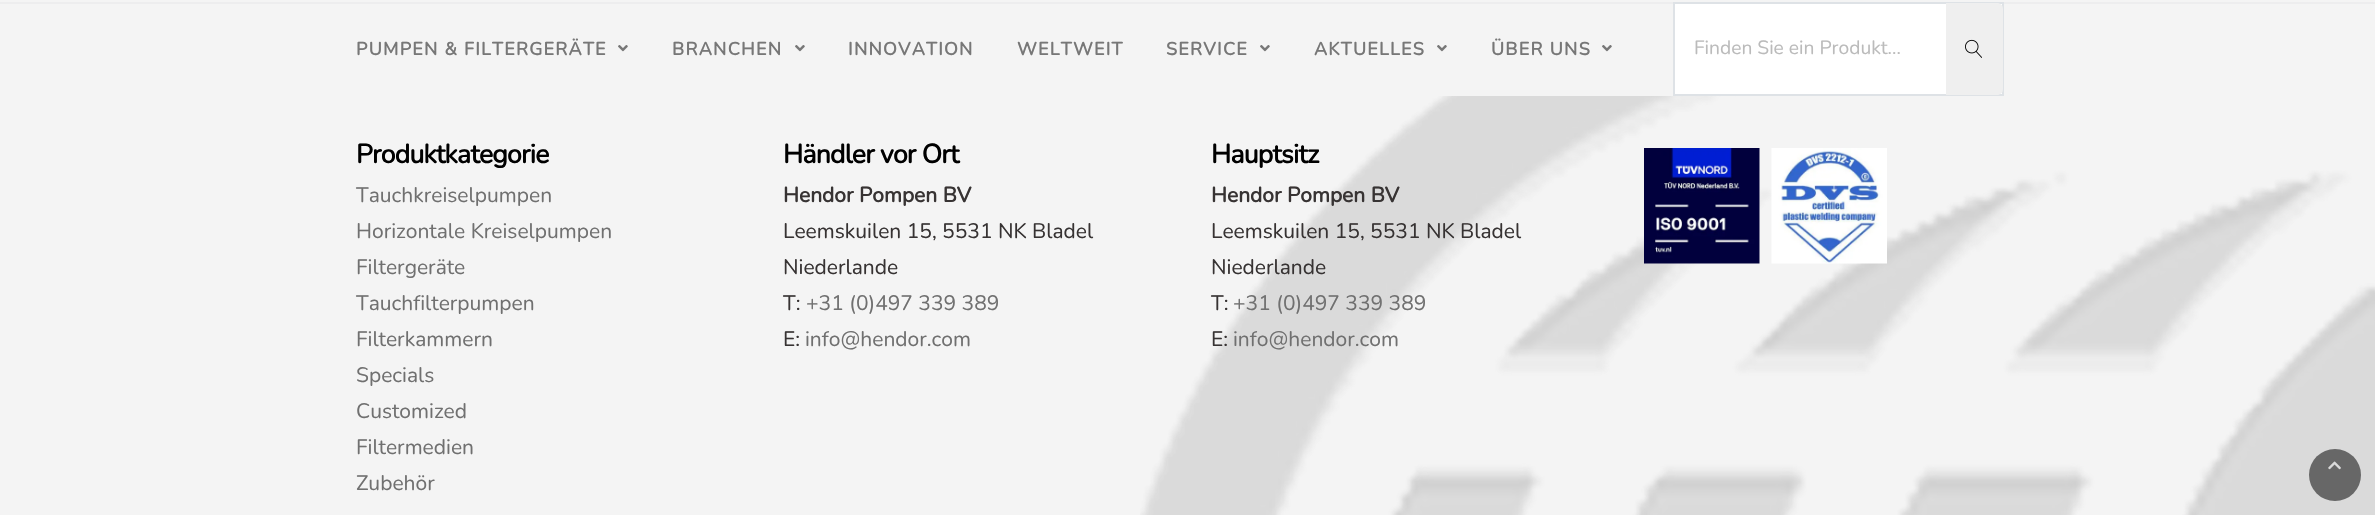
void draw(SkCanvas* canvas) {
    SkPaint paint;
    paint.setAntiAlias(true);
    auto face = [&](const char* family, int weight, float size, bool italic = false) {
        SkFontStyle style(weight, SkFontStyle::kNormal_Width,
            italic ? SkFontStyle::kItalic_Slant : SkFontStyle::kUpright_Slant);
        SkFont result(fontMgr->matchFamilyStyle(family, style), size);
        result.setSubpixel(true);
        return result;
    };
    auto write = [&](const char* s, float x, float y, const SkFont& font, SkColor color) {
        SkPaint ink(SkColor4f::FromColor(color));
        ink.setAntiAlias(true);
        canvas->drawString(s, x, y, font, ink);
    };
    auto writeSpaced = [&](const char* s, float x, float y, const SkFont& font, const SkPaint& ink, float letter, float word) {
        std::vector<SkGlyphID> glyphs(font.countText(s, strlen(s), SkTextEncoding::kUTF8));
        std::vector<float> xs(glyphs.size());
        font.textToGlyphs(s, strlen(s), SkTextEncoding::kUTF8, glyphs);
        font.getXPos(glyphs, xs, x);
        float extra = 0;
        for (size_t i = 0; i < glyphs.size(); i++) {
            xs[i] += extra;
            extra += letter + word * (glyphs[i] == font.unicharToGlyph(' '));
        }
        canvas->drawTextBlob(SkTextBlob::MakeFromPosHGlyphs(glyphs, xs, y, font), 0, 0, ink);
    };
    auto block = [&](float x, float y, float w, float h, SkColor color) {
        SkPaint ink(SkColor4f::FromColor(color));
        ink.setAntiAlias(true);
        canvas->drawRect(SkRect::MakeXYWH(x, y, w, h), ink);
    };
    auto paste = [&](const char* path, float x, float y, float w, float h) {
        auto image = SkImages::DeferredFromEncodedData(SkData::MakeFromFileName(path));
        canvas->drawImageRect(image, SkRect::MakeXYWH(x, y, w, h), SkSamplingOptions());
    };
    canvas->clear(SkColorSetRGB(244, 244, 244));
    block(0, 2, 2375, 2, SkColorSetRGB(237, 237, 238));
    auto kFont1 = face("Nunito", 700, 18);
    paint.setColor(SkColorSetRGB(119, 119, 119));
    writeSpaced("PUMPEN & FILTERGERÄTE", 356, 55, kFont1, paint, 1.25f, 0);
    paste("pic1.png", 618, 45, 10, 7);
    writeSpaced("BRANCHEN", 672, 55, kFont1, paint, 1.25f, 0);
    paste("pic1.png", 795, 45, 10, 7);
    writeSpaced("INNOVATION", 848, 55, kFont1, paint, 1.25f, 0);
    writeSpaced("WELTWEIT", 1017, 55, kFont1, paint, 1.25f, 0);
    writeSpaced("SERVICE", 1166, 55, kFont1, paint, 1.25f, 0);
    paste("pic1.png", 1260, 45, 10, 7);
    writeSpaced("AKTUELLES", 1314, 55, kFont1, paint, 1.25f, 0);
    paste("pic1.png", 1437, 45, 10, 7);
    writeSpaced("ÜBER UNS", 1491, 55, kFont1, paint, 1.25f, 0);
    paste("pic1.png", 1602, 45, 10, 7);
    paint.setColor(SK_ColorWHITE);
    canvas->drawRect(SkRect::MakeXYWH(1674, 3, 329, 92), paint);
    paint.setStyle(SkPaint::kStroke_Style);
    paint.setStrokeWidth(2);
    paint.setColor(SkColorSetRGB(222, 226, 230));
    canvas->drawRect(SkRect::MakeXYWH(1674, 3, 329, 92), paint);
    auto kFont2 = face("Nunito", 200, 19.25f);
    write("Finden Sie ein Produkt...", 1694, 54, kFont2, SkColorSetRGB(187, 187, 187));
    paint.setStyle(SkPaint::kFill_Style);
    paint.setColor(SkColorSetRGB(239, 239, 239));
    canvas->drawPath(SkPathBuilder().moveTo(1946, 3).lineTo(1997, 3).cubicTo(2000.5f, 3, 2003, 5.5f, 2003, 9).lineTo(2003, 89).cubicTo(2003, 92.5f, 2000.5f, 95, 1997, 95).lineTo(1946, 95).close().detach(), paint);
    paste("pic2.png", 1965, 39, 17, 19);
    paste("pic3.png", 1140, 96, 1235, 419);
    auto kFont3 = face("Nunito", 700, 26.5f);
    paint.setColor(SK_ColorBLACK);
    writeSpaced("Produktkategorie", 356, 163, kFont3, paint, -0.75f, 0);
    auto kFont4 = face("Nunito", 200, 21);
    write("Tauchkreiselpumpen", 356, 202, kFont4, SkColorSetRGB(112, 112, 112));
    write("Horizontale Kreiselpumpen", 356, 238, kFont4, SkColorSetRGB(112, 112, 112));
    write("Filtergeräte", 356, 274, kFont4, SkColorSetRGB(112, 112, 112));
    write("Tauchfilterpumpen", 356, 310, kFont4, SkColorSetRGB(112, 112, 112));
    write("Filterkammern", 356, 346, kFont4, SkColorSetRGB(112, 112, 112));
    write("Specials", 356, 382, kFont4, SkColorSetRGB(112, 112, 112));
    write("Customized", 356, 418, kFont4, SkColorSetRGB(112, 112, 112));
    write("Filtermedien", 356, 454, kFont4, SkColorSetRGB(112, 112, 112));
    write("Zubehör", 356, 490, kFont4, SkColorSetRGB(112, 112, 112));
    writeSpaced("Händler vor Ort", 783, 163, kFont3, paint, -0.75f, 0);
    auto kFont5 = face("Nunito", 700, 21);
    write("Hendor Pompen BV", 783, 202, kFont5, SkColorSetRGB(55, 51, 51));
    write("Leemskuilen 15, 5531 NK Bladel", 783, 238, kFont4, SkColorSetRGB(55, 51, 51));
    write("Niederlande", 783, 274, kFont4, SkColorSetRGB(55, 51, 51));
    write("T:", 783, 310, kFont4, SkColorSetRGB(55, 51, 51));
    write("+31 (0)497 339 389", 806, 310, kFont4, SkColorSetRGB(112, 112, 112));
    write("E:", 783, 346, kFont4, SkColorSetRGB(55, 51, 51));
    write("info@hendor.com", 805, 346, kFont4, SkColorSetRGB(112, 112, 112));
    writeSpaced("Hauptsitz", 1211, 163, kFont3, paint, -0.75f, 0);
    write("Hendor Pompen BV", 1211, 202, kFont5, SkColorSetRGB(55, 51, 51));
    write("Leemskuilen 15, 5531 NK Bladel", 1211, 238, kFont4, SkColorSetRGB(55, 51, 51));
    write("Niederlande", 1211, 274, kFont4, SkColorSetRGB(55, 51, 51));
    write("T:", 1211, 310, kFont4, SkColorSetRGB(55, 51, 51));
    write("+31 (0)497 339 389", 1233, 310, kFont4, SkColorSetRGB(112, 112, 112));
    write("E:", 1211, 346, kFont4, SkColorSetRGB(55, 51, 51));
    write("info@hendor.com", 1233, 346, kFont4, SkColorSetRGB(112, 112, 112));
    paste("pic4.png", 1644, 148, 116, 116);
    paste("pic5.png", 1771, 148, 116, 116);
    paint.setColor(SkColorSetRGB(103, 103, 103));
    canvas->drawCircle(2335, 475, 26, paint);
    paste("pic6.png", 2328, 461, 13, 9);
}
